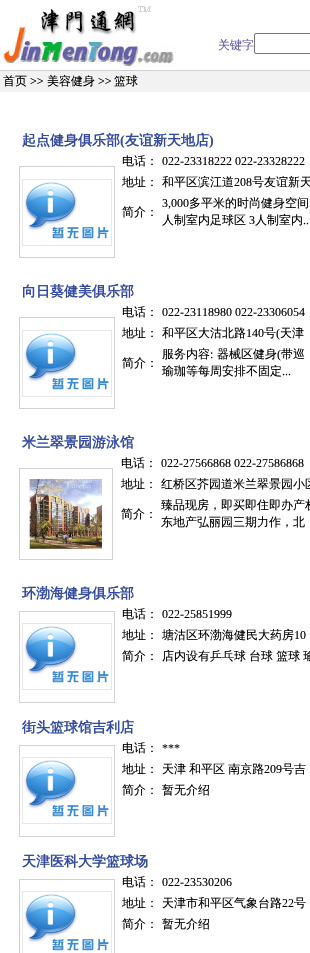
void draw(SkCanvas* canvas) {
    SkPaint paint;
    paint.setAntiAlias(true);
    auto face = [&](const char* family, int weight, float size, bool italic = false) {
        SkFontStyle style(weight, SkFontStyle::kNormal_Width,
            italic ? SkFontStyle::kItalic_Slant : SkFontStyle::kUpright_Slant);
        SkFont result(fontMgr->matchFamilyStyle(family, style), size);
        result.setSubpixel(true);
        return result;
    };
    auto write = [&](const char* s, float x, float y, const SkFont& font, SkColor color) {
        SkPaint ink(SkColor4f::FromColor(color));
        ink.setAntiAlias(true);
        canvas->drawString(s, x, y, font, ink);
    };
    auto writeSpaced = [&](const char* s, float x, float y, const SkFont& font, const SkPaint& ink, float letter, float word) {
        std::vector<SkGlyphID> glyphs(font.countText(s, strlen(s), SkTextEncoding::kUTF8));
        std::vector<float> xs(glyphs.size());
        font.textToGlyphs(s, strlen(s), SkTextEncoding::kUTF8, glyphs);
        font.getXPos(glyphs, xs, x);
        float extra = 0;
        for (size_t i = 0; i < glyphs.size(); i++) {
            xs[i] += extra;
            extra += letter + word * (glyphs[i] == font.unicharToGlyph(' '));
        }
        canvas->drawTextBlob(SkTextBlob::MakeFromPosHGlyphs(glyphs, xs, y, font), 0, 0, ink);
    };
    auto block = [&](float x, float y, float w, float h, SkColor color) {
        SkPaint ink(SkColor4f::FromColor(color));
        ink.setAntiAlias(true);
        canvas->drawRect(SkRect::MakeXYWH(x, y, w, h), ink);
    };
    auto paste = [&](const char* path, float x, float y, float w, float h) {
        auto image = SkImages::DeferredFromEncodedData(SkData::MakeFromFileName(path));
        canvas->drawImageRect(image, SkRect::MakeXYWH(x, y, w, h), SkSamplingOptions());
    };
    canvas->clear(SK_ColorWHITE);
    paste("pic1.png", 0, 0, 176, 68);
    auto kFont1 = face("WenQuanYi Zen Hei", 500, 12);
    write("关键字", 218, 49, kFont1, SkColorSetRGB(99, 91, 166));
    paint.setStyle(SkPaint::kStroke_Style);
    paint.setStrokeWidth(1);
    paint.setColor(SkColorSetRGB(118, 118, 118));
    canvas->drawRoundRect(SkRect::MakeXYWH(254.5f, 33.5f, 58, 20), 1.5f, 1.5f, paint);
    block(0, 71, 310, 21, SkColorSetRGB(242, 242, 242));
    block(0, 70, 310, 1, SkColorSetRGB(210, 210, 210));
    write("首页", 3, 85, kFont1, SK_ColorBLACK);
    auto kFont2 = face("Liberation Serif", 400, 12);
    write(">>", 30, 85, kFont2, SK_ColorBLACK);
    write("美容健身", 47, 85, kFont1, SK_ColorBLACK);
    write(">>", 98, 85, kFont2, SK_ColorBLACK);
    write("篮球", 114, 85, kFont1, SK_ColorBLACK);
    auto kFont3 = face("WenQuanYi Zen Hei", 700, 14);
    write("起点健身俱乐部", 22, 145, kFont3, SkColorSetRGB(53, 75, 161));
    auto kFont4 = face("Liberation Serif", 700, 14);
    write("(", 120, 145, kFont4, SkColorSetRGB(53, 75, 161));
    write("友谊新天地店", 125, 145, kFont3, SkColorSetRGB(53, 75, 161));
    write(")", 209, 145, kFont4, SkColorSetRGB(53, 75, 161));
    paint.setColor(SkColorSetRGB(210, 210, 210));
    canvas->drawRect(SkRect::MakeXYWH(19.5f, 166.5f, 95, 91), paint);
    paste("pic2.png", 22, 179, 90, 67);
    write("电话：", 122, 165, kFont1, SK_ColorBLACK);
    write("022-23318222 022-23328222", 162, 165, kFont2, SK_ColorBLACK);
    write("地址：", 122, 186, kFont1, SK_ColorBLACK);
    write("和平区滨江道", 162, 186, kFont1, SK_ColorBLACK);
    write("208", 234, 186, kFont2, SK_ColorBLACK);
    write("号友谊新天", 252, 186, kFont1, SK_ColorBLACK);
    write("简介：", 122, 216, kFont1, SK_ColorBLACK);
    write("3,000", 162, 207, kFont2, SK_ColorBLACK);
    write("多平米的时尚健身空间", 189, 207, kFont1, SK_ColorBLACK);
    write("人制室内足球区", 162, 224, kFont1, SK_ColorBLACK);
    write("3", 249, 224, kFont2, SK_ColorBLACK);
    write("人制室内", 255, 224, kFont1, SK_ColorBLACK);
    write("..", 303, 224, kFont2, SK_ColorBLACK);
    write("向日葵健美俱乐部", 22, 296, kFont3, SkColorSetRGB(53, 75, 161));
    canvas->drawRect(SkRect::MakeXYWH(19.5f, 317.5f, 95, 91), paint);
    paste("pic2.png", 22, 330, 90, 67);
    write("电话：", 122, 316, kFont1, SK_ColorBLACK);
    write("022-23118980 022-23306054", 162, 316, kFont2, SK_ColorBLACK);
    write("地址：", 122, 337, kFont1, SK_ColorBLACK);
    write("和平区大沽北路", 162, 337, kFont1, SK_ColorBLACK);
    write("140", 246, 337, kFont2, SK_ColorBLACK);
    write("号", 264, 337, kFont1, SK_ColorBLACK);
    write("(", 276, 337, kFont2, SK_ColorBLACK);
    write("天津", 280, 337, kFont1, SK_ColorBLACK);
    write("简介：", 122, 367, kFont1, SK_ColorBLACK);
    write("服务内容", 162, 358, kFont1, SK_ColorBLACK);
    write(":", 210, 358, kFont2, SK_ColorBLACK);
    write("器械区健身", 217, 358, kFont1, SK_ColorBLACK);
    write("(", 277, 358, kFont2, SK_ColorBLACK);
    write("带巡", 281, 358, kFont1, SK_ColorBLACK);
    write("瑜珈等每周安排不固定", 162, 375, kFont1, SK_ColorBLACK);
    write("...", 282, 375, kFont2, SK_ColorBLACK);
    write("米兰翠景园游泳馆", 22, 447, kFont3, SkColorSetRGB(53, 75, 161));
    canvas->drawRect(SkRect::MakeXYWH(19.5f, 468.5f, 93, 91), paint);
    paste("pic3.png", 29, 479, 73, 70);
    write("电话：", 121, 467, kFont1, SK_ColorBLACK);
    write("022-27566868 022-27586868", 161, 467, kFont2, SK_ColorBLACK);
    write("地址：", 121, 488, kFont1, SK_ColorBLACK);
    write("红桥区芥园道米兰翠景园小区", 161, 488, kFont1, SK_ColorBLACK);
    write("简介：", 121, 518, kFont1, SK_ColorBLACK);
    write("臻品现房，即买即住即办产权", 161, 509, kFont1, SK_ColorBLACK);
    write("东地产弘丽园三期力作，北", 161, 526, kFont1, SK_ColorBLACK);
    write("环渤海健身俱乐部", 22, 598, kFont3, SkColorSetRGB(53, 75, 161));
    canvas->drawRect(SkRect::MakeXYWH(19.5f, 611.5f, 95, 91), paint);
    paste("pic2.png", 22, 623, 90, 67);
    write("电话：", 122, 618, kFont1, SK_ColorBLACK);
    write("022-25851999", 162, 618, kFont2, SK_ColorBLACK);
    write("地址：", 122, 639, kFont1, SK_ColorBLACK);
    write("塘沽区环渤海健民大药房", 162, 639, kFont1, SK_ColorBLACK);
    write("10", 294, 639, kFont2, SK_ColorBLACK);
    write("简介：", 122, 660, kFont1, SK_ColorBLACK);
    paint.setStyle(SkPaint::kFill_Style);
    paint.setColor(SK_ColorBLACK);
    writeSpaced("店内设有乒乓球 台球 篮球 瑜", 162, 660, kFont1, paint, 0, -0.5f);
    write("街头篮球馆吉利店", 22, 732, kFont3, SkColorSetRGB(53, 75, 161));
    paint.setStyle(SkPaint::kStroke_Style);
    paint.setColor(SkColorSetRGB(210, 210, 210));
    canvas->drawRect(SkRect::MakeXYWH(19.5f, 745.5f, 95, 91), paint);
    paste("pic2.png", 22, 757, 90, 67);
    write("电话：", 122, 752, kFont1, SK_ColorBLACK);
    write("***", 162, 752, kFont2, SK_ColorBLACK);
    write("地址：", 122, 773, kFont1, SK_ColorBLACK);
    paint.setStyle(SkPaint::kFill_Style);
    paint.setColor(SK_ColorBLACK);
    writeSpaced("天津 和平区 南京路", 162, 773, kFont1, paint, 0, -0.5f);
    write("209", 264, 773, kFont2, SK_ColorBLACK);
    write("号吉", 282, 773, kFont1, SK_ColorBLACK);
    write("简介：", 122, 794, kFont1, SK_ColorBLACK);
    write("暂无介绍", 162, 794, kFont1, SK_ColorBLACK);
    write("天津医科大学篮球场", 22, 866, kFont3, SkColorSetRGB(53, 75, 161));
    paint.setStyle(SkPaint::kStroke_Style);
    paint.setColor(SkColorSetRGB(210, 210, 210));
    canvas->drawRect(SkRect::MakeXYWH(19.5f, 879.5f, 95, 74), paint);
    paste("pic4.png", 22, 891, 90, 62);
    write("电话：", 122, 886, kFont1, SK_ColorBLACK);
    write("022-23530206", 162, 886, kFont2, SK_ColorBLACK);
    write("地址：", 122, 907, kFont1, SK_ColorBLACK);
    write("天津市和平区气象台路", 162, 907, kFont1, SK_ColorBLACK);
    write("22", 282, 907, kFont2, SK_ColorBLACK);
    write("号", 294, 907, kFont1, SK_ColorBLACK);
    write("简介：", 122, 928, kFont1, SK_ColorBLACK);
    write("暂无介绍", 162, 928, kFont1, SK_ColorBLACK);
}
